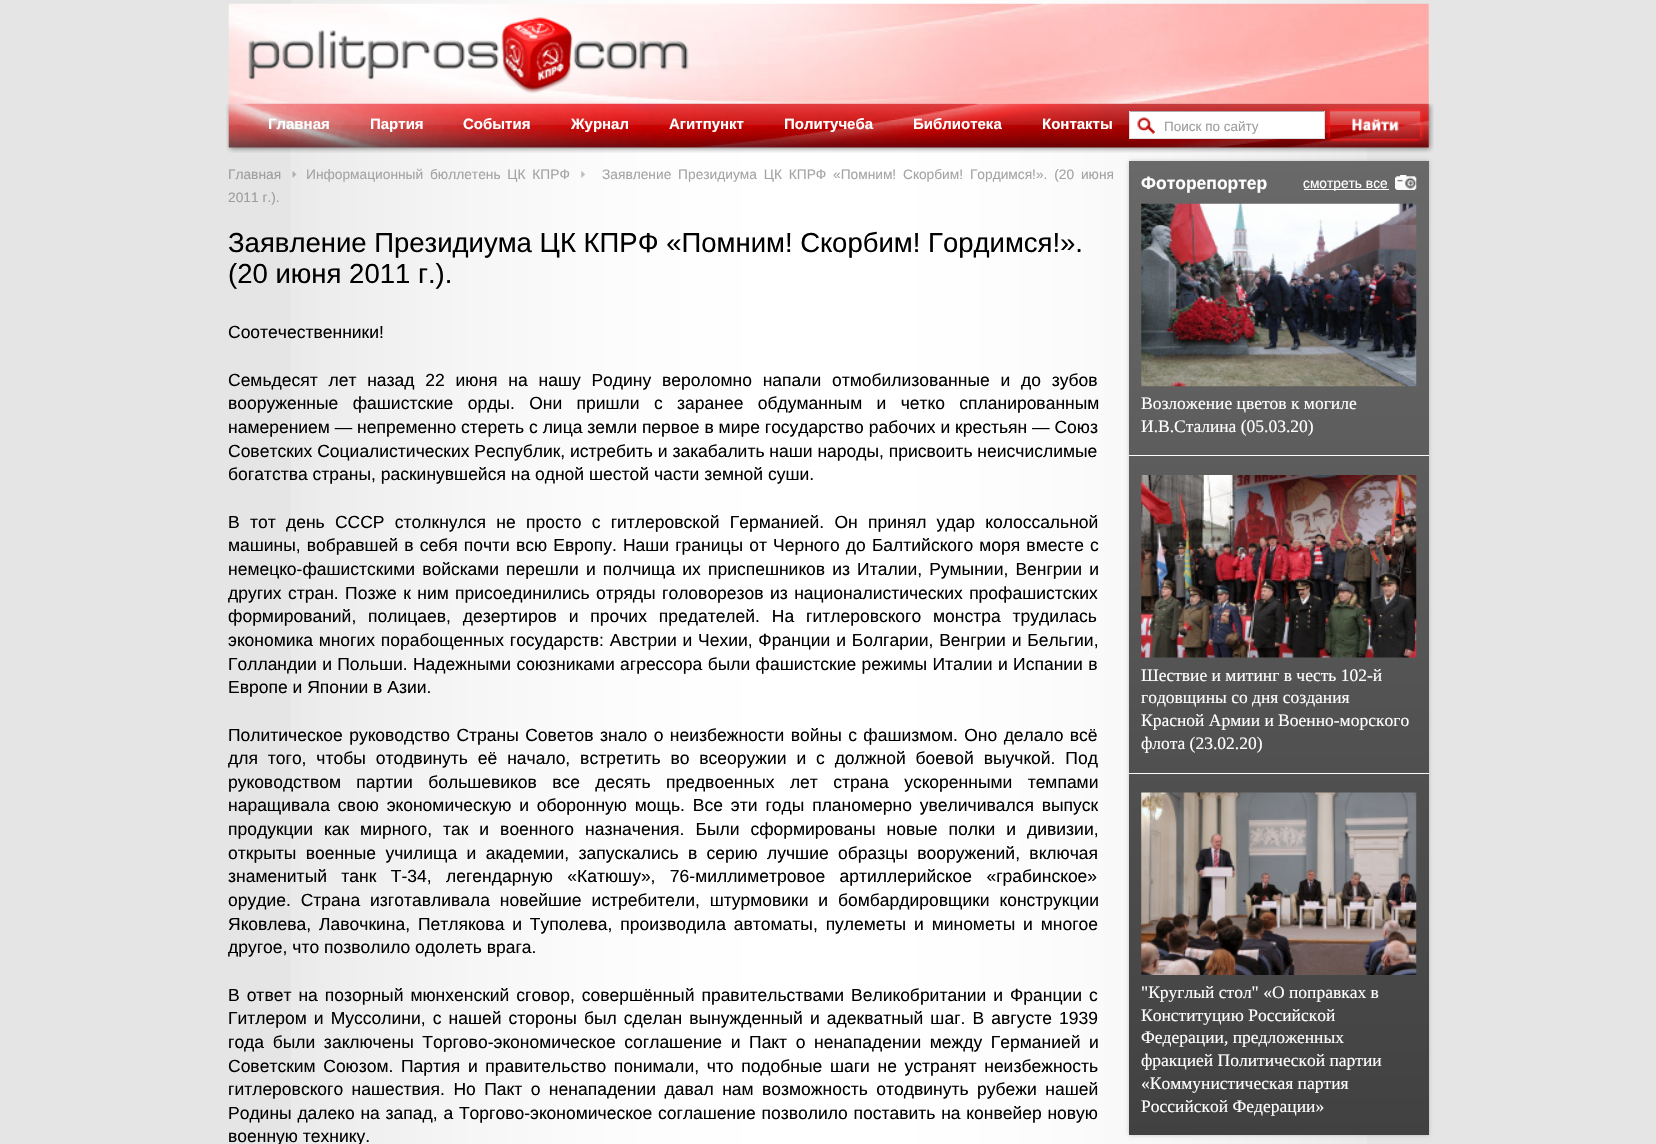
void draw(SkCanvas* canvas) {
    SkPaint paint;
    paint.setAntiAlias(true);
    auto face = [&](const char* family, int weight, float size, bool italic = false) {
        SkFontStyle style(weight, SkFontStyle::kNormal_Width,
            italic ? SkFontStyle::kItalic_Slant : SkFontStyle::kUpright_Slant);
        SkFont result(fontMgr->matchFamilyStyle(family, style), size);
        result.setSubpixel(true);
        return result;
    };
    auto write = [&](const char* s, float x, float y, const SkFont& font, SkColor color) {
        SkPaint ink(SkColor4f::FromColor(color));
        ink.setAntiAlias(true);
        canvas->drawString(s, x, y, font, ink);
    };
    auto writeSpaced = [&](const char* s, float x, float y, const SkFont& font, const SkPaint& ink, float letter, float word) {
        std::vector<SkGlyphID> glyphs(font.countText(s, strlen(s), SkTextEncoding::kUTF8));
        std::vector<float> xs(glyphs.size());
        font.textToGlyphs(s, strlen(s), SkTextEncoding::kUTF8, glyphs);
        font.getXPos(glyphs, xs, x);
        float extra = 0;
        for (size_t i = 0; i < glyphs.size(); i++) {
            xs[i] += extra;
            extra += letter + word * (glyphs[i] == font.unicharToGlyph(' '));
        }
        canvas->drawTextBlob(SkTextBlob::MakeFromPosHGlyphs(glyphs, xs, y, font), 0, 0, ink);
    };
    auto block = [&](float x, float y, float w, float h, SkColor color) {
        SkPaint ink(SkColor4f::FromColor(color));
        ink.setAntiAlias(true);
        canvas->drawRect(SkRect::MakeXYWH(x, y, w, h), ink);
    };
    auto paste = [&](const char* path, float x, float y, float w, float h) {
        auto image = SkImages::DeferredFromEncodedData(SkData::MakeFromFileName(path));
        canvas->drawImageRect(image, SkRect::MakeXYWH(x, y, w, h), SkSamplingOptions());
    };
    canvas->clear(SkColorSetRGB(229, 229, 229));
    paste("pic1.png", 291, 0, 1076, 1144);
    paste("pic2.png", 228, 3, 1201, 101);
    paste("pic3.png", 248, 17, 441, 77);
    paste("pic4.png", 226, 103, 1208, 50);
    auto kFont1 = face("Liberation Sans", 700, 15);
    write("Главная", 268, 129, kFont1, SK_ColorWHITE);
    write("Партия", 370, 129, kFont1, SK_ColorWHITE);
    write("События", 463, 129, kFont1, SK_ColorWHITE);
    write("Журнал", 571, 129, kFont1, SK_ColorWHITE);
    write("Агитпункт", 669, 129, kFont1, SK_ColorWHITE);
    write("Политучеба", 784, 129, kFont1, SK_ColorWHITE);
    write("Библиотека", 913, 129, kFont1, SK_ColorWHITE);
    write("Контакты", 1042, 129, kFont1, SK_ColorWHITE);
    block(1130, 112, 194, 26, SK_ColorWHITE);
    paste("pic5.png", 1137, 117, 18, 17);
    block(1129, 111, 196, 1, SkColorSetRGB(171, 173, 179));
    block(1324, 111, 1, 28, SkColorSetRGB(219, 223, 230));
    block(1129, 138, 196, 1, SkColorSetRGB(219, 223, 230));
    block(1129, 111, 1, 28, SkColorSetRGB(219, 223, 230));
    auto kFont2 = face("Liberation Sans", 400, 13.5f);
    write("Поиск по сайту", 1164, 131, kFont2, SkColorSetRGB(157, 157, 157));
    paste("pic6.png", 1326, 107, 98, 36);
    auto kFont3 = face("Liberation Sans", 400, 13.75f);
    write("Главная", 228, 179, kFont3, SkColorSetRGB(157, 157, 157));
    paste("pic7.png", 292, 171, 5, 7);
    paint.setColor(SkColorSetRGB(164, 164, 164));
    writeSpaced("Информационный бюллетень ЦК КПРФ", 306, 179, kFont3, paint, 0, 3);
    paste("pic8.png", 581, 171, 4, 7);
    writeSpaced("Заявление Президиума ЦК КПРФ", 602, 179, kFont3, paint, 0, 3);
    writeSpaced("«Помним! Скорбим! Гордимся!». (20 июня", 833, 179, kFont3, paint, 0, 3);
    write("2011 г.).", 228, 202, kFont3, SkColorSetRGB(157, 157, 157));
    auto kFont4 = face("Liberation Sans", 400, 27.5f);
    write("Заявление Президиума ЦК КПРФ «Помним! Скорбим! Гордимся!».", 228, 252, kFont4, SK_ColorBLACK);
    write("(20 июня 2011 г.).", 228, 283, kFont4, SK_ColorBLACK);
    auto kFont5 = face("Liberation Sans", 400, 17.5f);
    write("Соотечественники!", 228, 338, kFont5, SK_ColorBLACK);
    paint.setColor(SK_ColorBLACK);
    writeSpaced("Семьдесят лет назад 22 июня на нашу Родину вероломно напали отмобилизованные и до зубов", 228, 386, kFont5, paint, 0, 5.9f);
    writeSpaced("вооруженные фашистские орды. Они пришли с заранее обдуманным и четко спланированным", 228, 409, kFont5, paint, 0, 9.5f);
    write("намерением — непременно стереть с лица земли первое в мире государство рабочих и крестьян — Союз", 228, 433, kFont5, SK_ColorBLACK);
    write("Советских Социалистических Республик, истребить и закабалить наши народы, присвоить неисчислимые", 228, 457, kFont5, SK_ColorBLACK);
    write("богатства страны, раскинувшейся на одной шестой части земной суши.", 228, 480, kFont5, SK_ColorBLACK);
    writeSpaced("В тот день СССР столкнулся не просто с гитлеровской Германией. Он принял удар колоссальной", 228, 528, kFont5, paint, 0, 5.4f);
    writeSpaced("машины, вобравшей в себя почти всю Европу. Наши границы от Черного до Балтийского моря вместе с", 228, 551, kFont5, paint, 0, 1.25f);
    writeSpaced("немецко-фашистскими войсками перешли и полчища их приспешников из Италии, Румынии, Венгрии и", 228, 575, kFont5, paint, 0, 2.25f);
    writeSpaced("других стран. Позже к ним присоединились отряды головорезов из националистических профашистских", 228, 599, kFont5, paint, 0, 1.5f);
    writeSpaced("формирований, полицаев, дезертиров и прочих предателей. На гитлеровского монстра трудилась", 228, 622, kFont5, paint, 0, 7);
    writeSpaced("экономика многих порабощенных государств: Австрии и Чехии, Франции и Болгарии, Венгрии и Бельгии,", 228, 646, kFont5, paint, 0, 0.9f);
    writeSpaced("Голландии и Польши. Надежными союзниками агрессора были фашистские режимы Италии и Испании в", 228, 670, kFont5, paint, 0, 0.5f);
    write("Европе и Японии в Азии.", 228, 693, kFont5, SK_ColorBLACK);
    writeSpaced("Политическое руководство Страны Советов знало о неизбежности войны с фашизмом. Оно делало всё", 228, 741, kFont5, paint, 0, 1.5f);
    writeSpaced("для того, чтобы отодвинуть её начало, встретить во всеоружии и с должной боевой выучкой. Под", 228, 764, kFont5, paint, 0, 5);
    writeSpaced("руководством партии большевиков все десять предвоенных лет страна ускоренными темпами", 228, 788, kFont5, paint, 0, 10.5f);
    writeSpaced("наращивала свою экономическую и оборонную мощь. Все эти годы планомерно увеличивался выпуск", 228, 811, kFont5, paint, 0, 3);
    writeSpaced("продукции как мирного, так и военного назначения. Были сформированы новые полки и дивизии,", 228, 835, kFont5, paint, 0, 6.1f);
    writeSpaced("открыты военные училища и академии, запускались в серию лучшие образцы вооружений, включая", 228, 859, kFont5, paint, 0, 4.5f);
    writeSpaced("знаменитый танк Т-34, легендарную «Катюшу», 76-миллиметровое артиллерийское «грабинское»", 228, 882, kFont5, paint, 0, 9.5f);
    writeSpaced("орудие. Страна изготавливала новейшие истребители, штурмовики и бомбардировщики конструкции", 228, 906, kFont5, paint, 0, 5);
    writeSpaced("Яковлева, Лавочкина, Петлякова и Туполева, производила автоматы, пулеметы и минометы и многое", 228, 930, kFont5, paint, 0, 3);
    write("другое, что позволило одолеть врага.", 228, 953, kFont5, SK_ColorBLACK);
    writeSpaced("В ответ на позорный мюнхенский сговор, совершённый правительствами Великобритании и Франции с", 228, 1001, kFont5, paint, 0, 2.1f);
    writeSpaced("Гитлером и Муссолини, с нашей стороны был сделан вынужденный и адекватный шаг. В августе 1939", 228, 1024, kFont5, paint, 0, 2.25f);
    writeSpaced("года были заключены Торгово-экономическое соглашение и Пакт о ненападении между Германией и", 228, 1048, kFont5, paint, 0, 3.75f);
    writeSpaced("Советским Союзом. Партия и правительство понимали, что подобные шаги не устранят неизбежность", 228, 1072, kFont5, paint, 0, 2.75f);
    writeSpaced("гитлеровского нашествия. Но Пакт о ненападении давал нам возможность отодвинуть рубежи нашей", 228, 1095, kFont5, paint, 0, 3.6f);
    writeSpaced("Родины далеко на запад, а Торгово-экономическое соглашение позволило поставить на конвейер новую", 228, 1119, kFont5, paint, 0, 0.9f);
    write("военную технику.", 228, 1142, kFont5, SK_ColorBLACK);
    paint.setColor(SkColorSetARGB(51, 0, 0, 0));
    paint.setMaskFilter(SkMaskFilter::MakeBlur(kNormal_SkBlurStyle, 2));
    canvas->drawRect(SkRect::MakeXYWH(1129, 161, 300, 974), paint);
    paint.setMaskFilter(nullptr);
    {
        const SkColor colors[] = {SkColorSetRGB(105, 105, 105), SkColorSetRGB(65, 65, 65)};
        const float stops[] = {0, 1};
        const SkPoint ends[] = {{1279, 161}, {1279, 1135}};
        paint.setShader(SkGradientShader::MakeLinear(ends, colors, stops, 2, SkTileMode::kClamp));
        paint.setAlpha(255);
    }
    canvas->drawRect(SkRect::MakeXYWH(1129, 161, 300, 974), paint);
    auto kFont6 = face("Liberation Sans", 700, 17.5f);
    write("Фоторепортер", 1141, 189, kFont6, SK_ColorWHITE);
    paste("pic9.png", 1395, 175, 22, 15);
    block(1304, 189, 85, 1, SK_ColorWHITE);
    write("смотреть все", 1303, 188, kFont3, SK_ColorWHITE);
    paste("pic10.png", 1141, 203, 276, 184);
    auto kFont7 = face("Liberation Serif", 400, 17.5f);
    write("Возложение цветов к могиле", 1141, 409, kFont7, SK_ColorWHITE);
    write("И.В.Сталина (05.03.20)", 1141, 432, kFont7, SK_ColorWHITE);
    block(1129, 455, 300, 1, SK_ColorWHITE);
    paste("pic11.png", 1141, 475, 276, 183);
    write("Шествие и митинг в честь 102-й", 1141, 681, kFont7, SK_ColorWHITE);
    write("годовщины со дня создания", 1141, 703, kFont7, SK_ColorWHITE);
    write("Красной Армии и Военно-морского", 1141, 726, kFont7, SK_ColorWHITE);
    write("флота (23.02.20)", 1141, 749, kFont7, SK_ColorWHITE);
    block(1129, 773, 300, 1, SK_ColorWHITE);
    paste("pic12.png", 1141, 792, 276, 183);
    write("\"Круглый стол\" «О поправках в", 1141, 998, kFont7, SK_ColorWHITE);
    write("Конституцию Российской", 1141, 1021, kFont7, SK_ColorWHITE);
    write("Федерации, предложенных", 1141, 1043, kFont7, SK_ColorWHITE);
    write("фракцией Политической партии", 1141, 1066, kFont7, SK_ColorWHITE);
    write("«Коммунистическая партия", 1141, 1089, kFont7, SK_ColorWHITE);
    write("Российской Федерации»", 1141, 1112, kFont7, SK_ColorWHITE);
}
